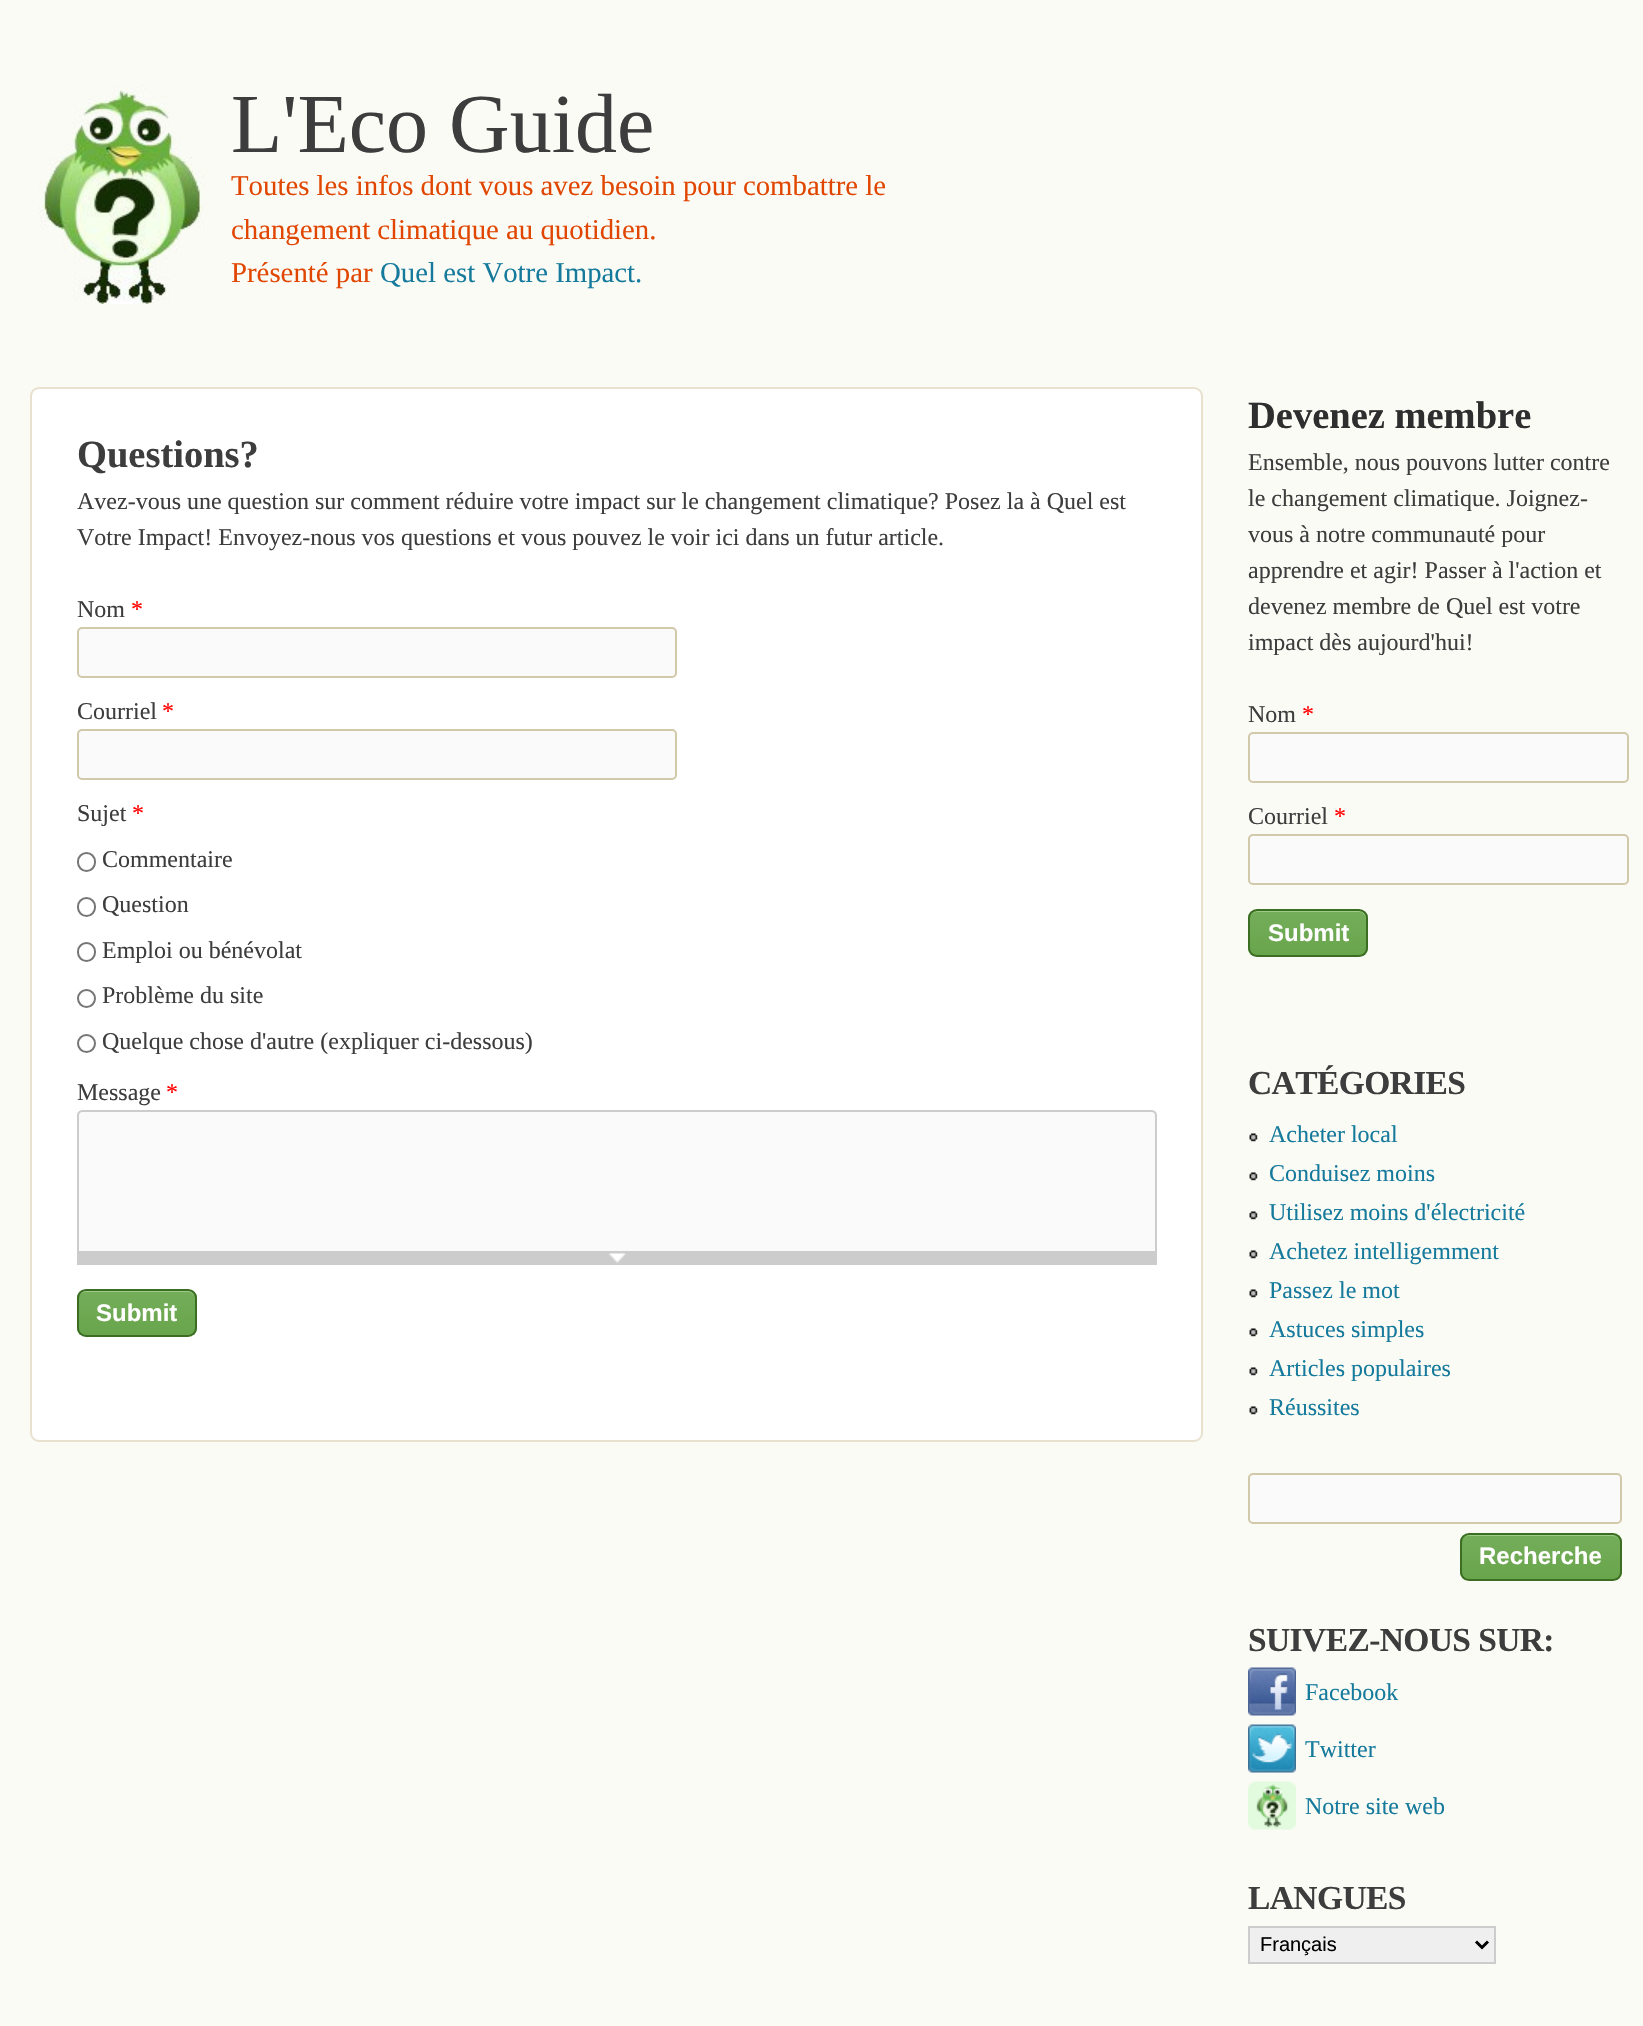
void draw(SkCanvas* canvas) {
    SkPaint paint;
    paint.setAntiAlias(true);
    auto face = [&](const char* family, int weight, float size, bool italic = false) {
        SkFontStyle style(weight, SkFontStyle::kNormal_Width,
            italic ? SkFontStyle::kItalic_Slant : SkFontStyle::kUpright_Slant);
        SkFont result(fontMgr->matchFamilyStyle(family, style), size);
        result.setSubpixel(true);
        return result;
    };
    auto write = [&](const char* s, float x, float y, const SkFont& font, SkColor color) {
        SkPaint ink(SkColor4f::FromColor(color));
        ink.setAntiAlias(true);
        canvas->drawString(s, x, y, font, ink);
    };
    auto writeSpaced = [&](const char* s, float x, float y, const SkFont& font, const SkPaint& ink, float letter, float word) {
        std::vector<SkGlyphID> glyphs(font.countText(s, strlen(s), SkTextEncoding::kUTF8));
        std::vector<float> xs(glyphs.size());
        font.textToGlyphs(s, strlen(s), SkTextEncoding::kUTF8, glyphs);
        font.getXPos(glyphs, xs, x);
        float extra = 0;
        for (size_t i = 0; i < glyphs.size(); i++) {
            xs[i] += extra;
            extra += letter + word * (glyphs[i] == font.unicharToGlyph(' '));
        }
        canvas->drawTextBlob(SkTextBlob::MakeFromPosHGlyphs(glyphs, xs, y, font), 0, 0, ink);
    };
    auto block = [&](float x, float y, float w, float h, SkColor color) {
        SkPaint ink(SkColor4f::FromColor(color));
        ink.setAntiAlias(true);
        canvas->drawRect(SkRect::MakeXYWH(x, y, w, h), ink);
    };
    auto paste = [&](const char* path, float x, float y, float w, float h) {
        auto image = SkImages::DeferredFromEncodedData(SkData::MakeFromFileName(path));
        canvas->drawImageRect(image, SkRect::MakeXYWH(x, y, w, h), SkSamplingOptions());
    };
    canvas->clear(SkColorSetRGB(251, 251, 246));
    paste("pic1.png", 38, 85, 166, 219);
    auto kFont1 = face("Liberation Serif", 400, 84);
    write("L'Eco Guide", 231, 152, kFont1, SkColorSetRGB(61, 61, 61));
    auto kFont2 = face("Liberation Serif", 400, 28.8f);
    write("Toutes les infos dont vous avez besoin pour combattre le", 231, 195, kFont2, SkColorSetRGB(225, 70, 1));
    write("changement climatique au quotidien.", 231, 239, kFont2, SkColorSetRGB(225, 70, 1));
    write("Présenté par", 231, 282, kFont2, SkColorSetRGB(225, 70, 1));
    write("Quel est Votre Impact.", 380, 282, kFont2, SkColorSetRGB(21, 122, 156));
    paint.setColor(SK_ColorWHITE);
    canvas->drawRoundRect(SkRect::MakeXYWH(31, 388, 1171, 1053), 8, 8, paint);
    paint.setStyle(SkPaint::kStroke_Style);
    paint.setStrokeWidth(2);
    paint.setColor(SkColorSetRGB(231, 225, 206));
    canvas->drawRoundRect(SkRect::MakeXYWH(31, 388, 1171, 1053), 8, 8, paint);
    auto kFont3 = face("Liberation Serif", 700, 38.5f);
    write("Questions?", 77, 467, kFont3, SkColorSetRGB(61, 61, 61));
    auto kFont4 = face("Liberation Serif", 400, 24);
    write("Avez-vous une question sur comment réduire votre impact sur le changement climatique? Posez la à Quel est", 77, 509, kFont4, SkColorSetRGB(61, 61, 61));
    write("Votre Impact! Envoyez-nous vos questions et vous pouvez le voir ici dans un futur article.", 77, 545, kFont4, SkColorSetRGB(61, 61, 61));
    write("Nom", 77, 617, kFont4, SkColorSetRGB(61, 61, 61));
    write("*", 131, 617, kFont4, SkColorSetRGB(255, 0, 0));
    paint.setStyle(SkPaint::kFill_Style);
    paint.setColor(SkColorSetRGB(250, 250, 250));
    canvas->drawRoundRect(SkRect::MakeXYWH(78, 628, 598, 49), 4, 4, paint);
    paint.setStyle(SkPaint::kStroke_Style);
    paint.setColor(SkColorSetRGB(210, 200, 170));
    canvas->drawRoundRect(SkRect::MakeXYWH(78, 628, 598, 49), 4, 4, paint);
    write("Courriel", 77, 719, kFont4, SkColorSetRGB(61, 61, 61));
    write("*", 162, 719, kFont4, SkColorSetRGB(255, 0, 0));
    paint.setStyle(SkPaint::kFill_Style);
    paint.setColor(SkColorSetRGB(250, 250, 250));
    canvas->drawRoundRect(SkRect::MakeXYWH(78, 730, 598, 49), 4, 4, paint);
    paint.setStyle(SkPaint::kStroke_Style);
    paint.setColor(SkColorSetRGB(210, 200, 170));
    canvas->drawRoundRect(SkRect::MakeXYWH(78, 730, 598, 49), 4, 4, paint);
    write("Sujet", 77, 821, kFont4, SkColorSetRGB(61, 61, 61));
    write("*", 132, 821, kFont4, SkColorSetRGB(255, 0, 0));
    paint.setColor(SkColorSetRGB(118, 118, 118));
    canvas->drawRoundRect(SkRect::MakeXYWH(78, 853, 17, 18), 8.5f, 8.5f, paint);
    write("Commentaire", 102, 867, kFont4, SkColorSetRGB(61, 61, 61));
    canvas->drawRoundRect(SkRect::MakeXYWH(78, 898, 17, 18), 8.5f, 8.5f, paint);
    write("Question", 102, 912, kFont4, SkColorSetRGB(61, 61, 61));
    canvas->drawRoundRect(SkRect::MakeXYWH(78, 943, 17, 18), 8.5f, 8.5f, paint);
    write("Emploi ou bénévolat", 102, 958, kFont4, SkColorSetRGB(61, 61, 61));
    canvas->drawCircle(86.5f, 998.5f, 8.5f, paint);
    write("Problème du site", 102, 1003, kFont4, SkColorSetRGB(61, 61, 61));
    canvas->drawCircle(86.5f, 1043.5f, 8.5f, paint);
    write("Quelque chose d'autre (expliquer ci-dessous)", 102, 1049, kFont4, SkColorSetRGB(61, 61, 61));
    write("Message", 77, 1100, kFont4, SkColorSetRGB(61, 61, 61));
    write("*", 166, 1100, kFont4, SkColorSetRGB(255, 0, 0));
    paint.setStyle(SkPaint::kFill_Style);
    paint.setColor(SkColorSetRGB(250, 250, 250));
    canvas->drawPath(SkPathBuilder().moveTo(82, 1111).lineTo(1152, 1111).cubicTo(1154, 1111, 1156, 1113, 1156, 1115).lineTo(1156, 1259).lineTo(78, 1259).lineTo(78, 1115).cubicTo(78, 1113, 80, 1111, 82, 1111).close().detach(), paint);
    paint.setStyle(SkPaint::kStroke_Style);
    paint.setColor(SkColorSetRGB(204, 204, 204));
    canvas->drawPath(SkPathBuilder().moveTo(82, 1111).lineTo(1152, 1111).cubicTo(1154, 1111, 1156, 1113, 1156, 1115).lineTo(1156, 1259).lineTo(78, 1259).lineTo(78, 1115).cubicTo(78, 1113, 80, 1111, 82, 1111).close().detach(), paint);
    block(79, 1251, 1076, 12, SkColorSetRGB(204, 204, 204));
    paste("pic2.png", 609, 1253, 17, 10);
    block(1155, 1260, 2, 5, SkColorSetRGB(204, 204, 204));
    block(77, 1263, 1080, 2, SkColorSetRGB(204, 204, 204));
    block(77, 1260, 2, 5, SkColorSetRGB(204, 204, 204));
    canvas->save();
    canvas->clipPath(SkPathBuilder().moveTo(86, 1289).lineTo(188, 1289).cubicTo(193, 1289, 197, 1293, 197, 1298).lineTo(197, 1328).cubicTo(197, 1333, 193, 1337, 188, 1337).lineTo(86, 1337).cubicTo(81, 1337, 77, 1333, 77, 1328).lineTo(77, 1298).cubicTo(77, 1293, 81, 1289, 86, 1289).close().detach(), true);
    paint.setStyle(SkPaint::kFill_Style);
    {
        const SkColor colors[] = {SkColorSetRGB(116, 173, 90), SkColorSetRGB(104, 165, 75)};
        const float stops[] = {0.05f, 1};
        const SkPoint ends[] = {{137, 1290}, {137, 1335}};
        paint.setShader(SkGradientShader::MakeLinear(ends, colors, stops, 2, SkTileMode::kClamp));
        paint.setAlpha(255);
    }
    canvas->drawRect(SkRect::MakeXYWH(77, 1290, 120, 45), paint);
    canvas->restore();
    paint.setShader(nullptr);
    paint.setColor(SkColorSetRGB(154, 204, 133));
    canvas->drawPath(SkPathBuilder().moveTo(86, 1292).lineTo(188, 1292).cubicTo(192, 1292, 195, 1295, 195, 1299).cubicTo(195, 1286, 178, 1290, 170, 1290).lineTo(103, 1290).cubicTo(95, 1290, 78, 1286, 78, 1299).cubicTo(78, 1295, 81, 1292, 86, 1292).close().detach(), paint);
    paint.setStyle(SkPaint::kStroke_Style);
    paint.setColor(SkColorSetRGB(59, 110, 34));
    canvas->drawRoundRect(SkRect::MakeXYWH(78, 1290, 118, 46), 8, 8, paint);
    auto kFont5 = face("Liberation Sans", 700, 24);
    write("Submit", 96, 1321, kFont5, SK_ColorWHITE);
    write("Devenez membre", 1248, 428, kFont3, SkColorSetRGB(46, 46, 46));
    write("Ensemble, nous pouvons lutter contre", 1248, 470, kFont4, SkColorSetRGB(61, 61, 61));
    write("le changement climatique. Joignez-", 1248, 506, kFont4, SkColorSetRGB(61, 61, 61));
    write("vous à notre communauté pour", 1248, 542, kFont4, SkColorSetRGB(61, 61, 61));
    write("apprendre et agir! Passer à l'action et", 1248, 578, kFont4, SkColorSetRGB(61, 61, 61));
    write("devenez membre de Quel est votre", 1248, 614, kFont4, SkColorSetRGB(61, 61, 61));
    write("impact dès aujourd'hui!", 1248, 650, kFont4, SkColorSetRGB(61, 61, 61));
    write("Nom", 1248, 722, kFont4, SkColorSetRGB(61, 61, 61));
    write("*", 1302, 722, kFont4, SkColorSetRGB(255, 0, 0));
    paint.setStyle(SkPaint::kFill_Style);
    paint.setColor(SkColorSetRGB(250, 250, 250));
    canvas->drawRoundRect(SkRect::MakeXYWH(1249, 733, 379, 49), 4, 4, paint);
    paint.setStyle(SkPaint::kStroke_Style);
    paint.setColor(SkColorSetRGB(210, 200, 170));
    canvas->drawRoundRect(SkRect::MakeXYWH(1249, 733, 379, 49), 4, 4, paint);
    write("Courriel", 1248, 824, kFont4, SkColorSetRGB(61, 61, 61));
    write("*", 1334, 824, kFont4, SkColorSetRGB(255, 0, 0));
    paint.setStyle(SkPaint::kFill_Style);
    paint.setColor(SkColorSetRGB(250, 250, 250));
    canvas->drawRoundRect(SkRect::MakeXYWH(1249, 835, 379, 49), 4, 4, paint);
    paint.setStyle(SkPaint::kStroke_Style);
    paint.setColor(SkColorSetRGB(210, 200, 170));
    canvas->drawRoundRect(SkRect::MakeXYWH(1249, 835, 379, 49), 4, 4, paint);
    canvas->save();
    canvas->clipPath(SkPathBuilder().moveTo(1257, 909).lineTo(1359, 909).cubicTo(1364, 909, 1368, 913, 1368, 918).lineTo(1368, 948).cubicTo(1368, 953, 1364, 957, 1359, 957).lineTo(1257, 957).cubicTo(1252, 957, 1248, 953, 1248, 948).lineTo(1248, 918).cubicTo(1248, 913, 1252, 909, 1257, 909).close().detach(), true);
    paint.setStyle(SkPaint::kFill_Style);
    {
        const SkColor colors[] = {SkColorSetRGB(116, 173, 90), SkColorSetRGB(104, 165, 75)};
        const float stops[] = {0.05f, 1};
        const SkPoint ends[] = {{1308, 911}, {1308, 956}};
        paint.setShader(SkGradientShader::MakeLinear(ends, colors, stops, 2, SkTileMode::kClamp));
        paint.setAlpha(255);
    }
    canvas->drawRect(SkRect::MakeXYWH(1248, 911, 120, 45), paint);
    canvas->restore();
    paint.setShader(nullptr);
    paint.setColor(SkColorSetRGB(154, 204, 133));
    canvas->drawPath(SkPathBuilder().moveTo(1257, 912).lineTo(1359, 912).cubicTo(1368, 912, 1366, 924, 1366, 930).lineTo(1366, 953).cubicTo(1366, 951, 1367, 950, 1367, 948).lineTo(1367, 919).cubicTo(1367, 915, 1363, 911, 1359, 911).lineTo(1258, 911).cubicTo(1254, 911, 1250, 915, 1250, 919).lineTo(1250, 920).cubicTo(1250, 915, 1253, 912, 1257, 912).close().detach(), paint);
    paint.setStyle(SkPaint::kStroke_Style);
    paint.setColor(SkColorSetRGB(59, 110, 34));
    canvas->drawRoundRect(SkRect::MakeXYWH(1249, 910, 118, 46), 8, 8, paint);
    write("Submit", 1268, 941, kFont5, SK_ColorWHITE);
    auto kFont6 = face("Liberation Serif", 700, 33.5f);
    paint.setStyle(SkPaint::kFill_Style);
    paint.setColor(SkColorSetRGB(61, 61, 61));
    writeSpaced("CATÉGORIES", 1248, 1094, kFont6, paint, -0.6f, 0);
    paste("pic3.png", 1249, 1133, 9, 9);
    write("Acheter local", 1269, 1142, kFont4, SkColorSetRGB(21, 122, 156));
    paste("pic3.png", 1249, 1172, 9, 9);
    write("Conduisez moins", 1269, 1181, kFont4, SkColorSetRGB(21, 122, 156));
    paste("pic3.png", 1249, 1211, 9, 9);
    write("Utilisez moins d'électricité", 1269, 1220, kFont4, SkColorSetRGB(21, 122, 156));
    paste("pic3.png", 1249, 1250, 9, 9);
    write("Achetez intelligemment", 1269, 1259, kFont4, SkColorSetRGB(21, 122, 156));
    paste("pic3.png", 1249, 1289, 9, 9);
    write("Passez le mot", 1269, 1298, kFont4, SkColorSetRGB(21, 122, 156));
    paste("pic3.png", 1249, 1328, 9, 9);
    write("Astuces simples", 1269, 1337, kFont4, SkColorSetRGB(21, 122, 156));
    paste("pic3.png", 1249, 1367, 9, 9);
    write("Articles populaires", 1269, 1376, kFont4, SkColorSetRGB(21, 122, 156));
    paste("pic3.png", 1249, 1406, 9, 9);
    write("Réussites", 1269, 1415, kFont4, SkColorSetRGB(21, 122, 156));
    paint.setColor(SkColorSetRGB(250, 250, 250));
    canvas->drawRoundRect(SkRect::MakeXYWH(1249, 1474, 372, 49), 4, 4, paint);
    paint.setStyle(SkPaint::kStroke_Style);
    paint.setColor(SkColorSetRGB(210, 200, 170));
    canvas->drawRoundRect(SkRect::MakeXYWH(1249, 1474, 372, 49), 4, 4, paint);
    canvas->save();
    canvas->clipPath(SkPathBuilder().moveTo(1469, 1533).lineTo(1613, 1533).cubicTo(1618, 1533, 1622, 1537, 1622, 1542).lineTo(1622, 1572).cubicTo(1622, 1577, 1618, 1581, 1613, 1581).lineTo(1469, 1581).cubicTo(1464, 1581, 1460, 1577, 1460, 1572).lineTo(1460, 1542).cubicTo(1460, 1537, 1464, 1533, 1469, 1533).close().detach(), true);
    paint.setStyle(SkPaint::kFill_Style);
    {
        const SkColor colors[] = {SkColorSetRGB(116, 173, 90), SkColorSetRGB(104, 165, 75)};
        const float stops[] = {0.05f, 1};
        const SkPoint ends[] = {{1541, 1535}, {1541, 1580}};
        paint.setShader(SkGradientShader::MakeLinear(ends, colors, stops, 2, SkTileMode::kClamp));
        paint.setAlpha(255);
    }
    canvas->drawRect(SkRect::MakeXYWH(1460, 1535, 162, 45), paint);
    canvas->restore();
    paint.setShader(nullptr);
    paint.setColor(SkColorSetRGB(154, 204, 133));
    canvas->drawPath(SkPathBuilder().moveTo(1468, 1536).lineTo(1612, 1536).cubicTo(1617, 1536, 1620, 1539, 1620, 1544).cubicTo(1620, 1529, 1595, 1535, 1588, 1535).lineTo(1493, 1535).cubicTo(1486, 1535, 1461, 1529, 1461, 1544).cubicTo(1461, 1539, 1464, 1536, 1468, 1536).close().detach(), paint);
    paint.setStyle(SkPaint::kStroke_Style);
    paint.setColor(SkColorSetRGB(59, 110, 34));
    canvas->drawRoundRect(SkRect::MakeXYWH(1461, 1534, 160, 46), 8, 8, paint);
    write("Recherche", 1479, 1564, kFont5, SK_ColorWHITE);
    paint.setStyle(SkPaint::kFill_Style);
    paint.setColor(SkColorSetRGB(61, 61, 61));
    writeSpaced("SUIVEZ-NOUS SUR:", 1248, 1651, kFont6, paint, -0.6f, 0);
    paste("pic4.png", 1248, 1667, 48, 49);
    write("Facebook", 1305, 1700, kFont4, SkColorSetRGB(21, 122, 156));
    paste("pic5.png", 1248, 1724, 48, 49);
    write("Twitter", 1305, 1757, kFont4, SkColorSetRGB(21, 122, 156));
    paste("pic6.png", 1248, 1781, 48, 49);
    write("Notre site web", 1305, 1814, kFont4, SkColorSetRGB(21, 122, 156));
    writeSpaced("LANGUES", 1248, 1909, kFont6, paint, -0.6f, 0);
    paint.setColor(SkColorSetRGB(239, 239, 239));
    canvas->drawRect(SkRect::MakeXYWH(1249, 1927, 246, 36), paint);
    paint.setStyle(SkPaint::kStroke_Style);
    paint.setColor(SkColorSetRGB(204, 204, 204));
    canvas->drawRect(SkRect::MakeXYWH(1249, 1927, 246, 36), paint);
    paint.setStrokeWidth(3);
    paint.setColor(SK_ColorBLACK);
    canvas->drawPath(SkPathBuilder().moveTo(1476, 1941.5f).lineTo(1482, 1947.5f).lineTo(1488, 1941.5f).detach(), paint);
    auto kFont7 = face("Liberation Sans", 400, 20);
    write("Français", 1260, 1951, kFont7, SK_ColorBLACK);
}
